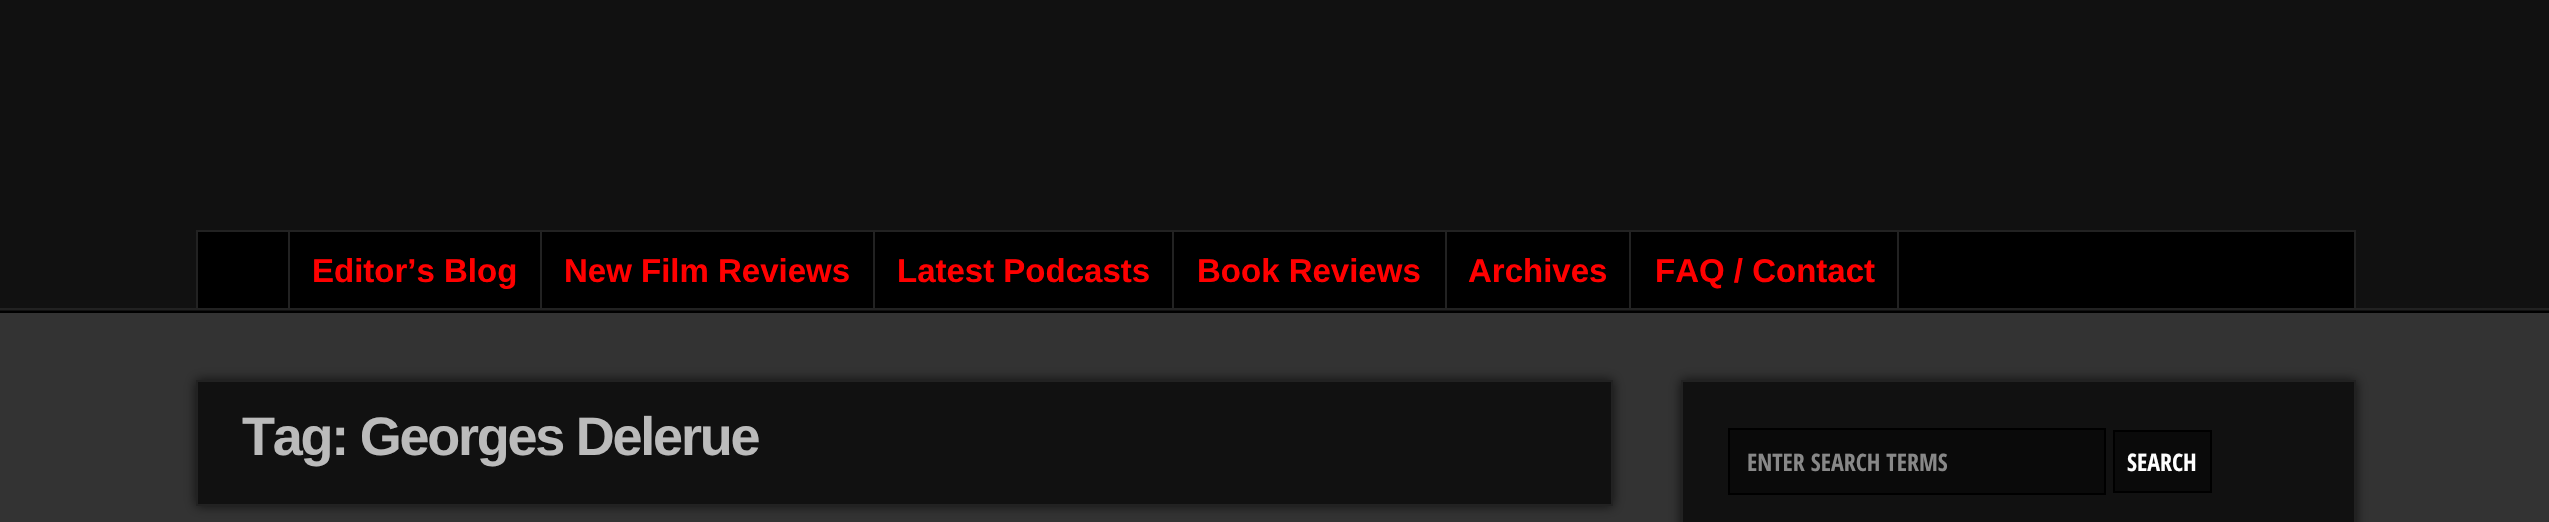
void draw(SkCanvas* canvas) {
    SkPaint paint;
    paint.setAntiAlias(true);
    auto face = [&](const char* family, int weight, float size, bool italic = false) {
        SkFontStyle style(weight, SkFontStyle::kNormal_Width,
            italic ? SkFontStyle::kItalic_Slant : SkFontStyle::kUpright_Slant);
        SkFont result(fontMgr->matchFamilyStyle(family, style), size);
        result.setSubpixel(true);
        return result;
    };
    auto write = [&](const char* s, float x, float y, const SkFont& font, SkColor color) {
        SkPaint ink(SkColor4f::FromColor(color));
        ink.setAntiAlias(true);
        canvas->drawString(s, x, y, font, ink);
    };
    auto writeSpaced = [&](const char* s, float x, float y, const SkFont& font, const SkPaint& ink, float letter, float word) {
        std::vector<SkGlyphID> glyphs(font.countText(s, strlen(s), SkTextEncoding::kUTF8));
        std::vector<float> xs(glyphs.size());
        font.textToGlyphs(s, strlen(s), SkTextEncoding::kUTF8, glyphs);
        font.getXPos(glyphs, xs, x);
        float extra = 0;
        for (size_t i = 0; i < glyphs.size(); i++) {
            xs[i] += extra;
            extra += letter + word * (glyphs[i] == font.unicharToGlyph(' '));
        }
        canvas->drawTextBlob(SkTextBlob::MakeFromPosHGlyphs(glyphs, xs, y, font), 0, 0, ink);
    };
    auto block = [&](float x, float y, float w, float h, SkColor color) {
        SkPaint ink(SkColor4f::FromColor(color));
        ink.setAntiAlias(true);
        canvas->drawRect(SkRect::MakeXYWH(x, y, w, h), ink);
    };
    canvas->clear(SkColorSetRGB(51, 51, 51));
    block(0, 0, 2549, 311, SkColorSetRGB(17, 17, 17));
    block(0, 308, 2549, 2, SkColorSetRGB(34, 34, 34));
    block(198, 232, 2156, 76, SK_ColorBLACK);
    block(196, 230, 2160, 2, SkColorSetRGB(34, 34, 34));
    block(2354, 230, 2, 78, SkColorSetRGB(34, 34, 34));
    block(196, 230, 2, 78, SkColorSetRGB(34, 34, 34));
    block(288, 232, 2, 76, SkColorSetRGB(34, 34, 34));
    block(540, 232, 2, 76, SkColorSetRGB(34, 34, 34));
    auto kFont1 = face("Liberation Sans", 700, 33);
    write("Editor’s Blog", 312, 282, kFont1, SkColorSetRGB(255, 0, 0));
    block(873, 232, 2, 76, SkColorSetRGB(34, 34, 34));
    write("New Film Reviews", 564, 282, kFont1, SkColorSetRGB(255, 0, 0));
    block(1172, 232, 2, 76, SkColorSetRGB(34, 34, 34));
    write("Latest Podcasts", 897, 282, kFont1, SkColorSetRGB(255, 0, 0));
    block(1445, 232, 2, 76, SkColorSetRGB(34, 34, 34));
    write("Book Reviews", 1197, 282, kFont1, SkColorSetRGB(255, 0, 0));
    block(1629, 232, 2, 76, SkColorSetRGB(34, 34, 34));
    write("Archives", 1468, 282, kFont1, SkColorSetRGB(255, 0, 0));
    block(1897, 232, 2, 76, SkColorSetRGB(34, 34, 34));
    write("FAQ / Contact", 1655, 282, kFont1, SkColorSetRGB(255, 0, 0));
    block(0, 311, 2549, 2, SK_ColorBLACK);
    paint.setColor(SkColorSetARGB(179, 0, 0, 0));
    paint.setMaskFilter(SkMaskFilter::MakeBlur(kNormal_SkBlurStyle, 5.5f));
    canvas->drawRect(SkRect::MakeXYWH(196, 380, 1417, 126), paint);
    paint.setMaskFilter(nullptr);
    paint.setColor(SkColorSetRGB(17, 17, 17));
    canvas->drawRect(SkRect::MakeXYWH(197, 381, 1415, 124), paint);
    paint.setStyle(SkPaint::kStroke_Style);
    paint.setStrokeWidth(2);
    paint.setColor(SkColorSetRGB(34, 34, 34));
    canvas->drawRect(SkRect::MakeXYWH(197, 381, 1415, 124), paint);
    auto kFont2 = face("Liberation Sans", 700, 54);
    paint.setStyle(SkPaint::kFill_Style);
    paint.setColor(SkColorSetRGB(187, 187, 187));
    writeSpaced("Tag: Georges Delerue", 242, 455, kFont2, paint, -2.25f, 0);
    paint.setColor(SkColorSetARGB(179, 0, 0, 0));
    paint.setMaskFilter(SkMaskFilter::MakeBlur(kNormal_SkBlurStyle, 5.5f));
    canvas->drawRect(SkRect::MakeXYWH(1681, 380, 675, 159), paint);
    paint.setMaskFilter(nullptr);
    paint.setColor(SkColorSetRGB(17, 17, 17));
    canvas->drawRect(SkRect::MakeXYWH(1682, 381, 673, 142), paint);
    paint.setStyle(SkPaint::kStroke_Style);
    paint.setColor(SkColorSetRGB(34, 34, 34));
    canvas->drawRect(SkRect::MakeXYWH(1682, 381, 673, 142), paint);
    paint.setStyle(SkPaint::kFill_Style);
    paint.setColor(SkColorSetRGB(10, 10, 10));
    canvas->drawRect(SkRect::MakeXYWH(1729, 429, 376, 65), paint);
    paint.setStyle(SkPaint::kStroke_Style);
    paint.setColor(SK_ColorBLACK);
    canvas->drawRect(SkRect::MakeXYWH(1729, 429, 376, 65), paint);
    auto kFont3 = face("Open Sans Condensed", 700, 24);
    write("ENTER SEARCH TERMS", 1747, 471, kFont3, SkColorSetRGB(136, 136, 136));
    paint.setStyle(SkPaint::kFill_Style);
    paint.setColor(SkColorSetRGB(10, 10, 10));
    canvas->drawRect(SkRect::MakeXYWH(2114, 431, 97, 61), paint);
    paint.setStyle(SkPaint::kStroke_Style);
    paint.setColor(SK_ColorBLACK);
    canvas->drawRect(SkRect::MakeXYWH(2114, 431, 97, 61), paint);
    write("SEARCH", 2127, 471, kFont3, SK_ColorWHITE);
}
